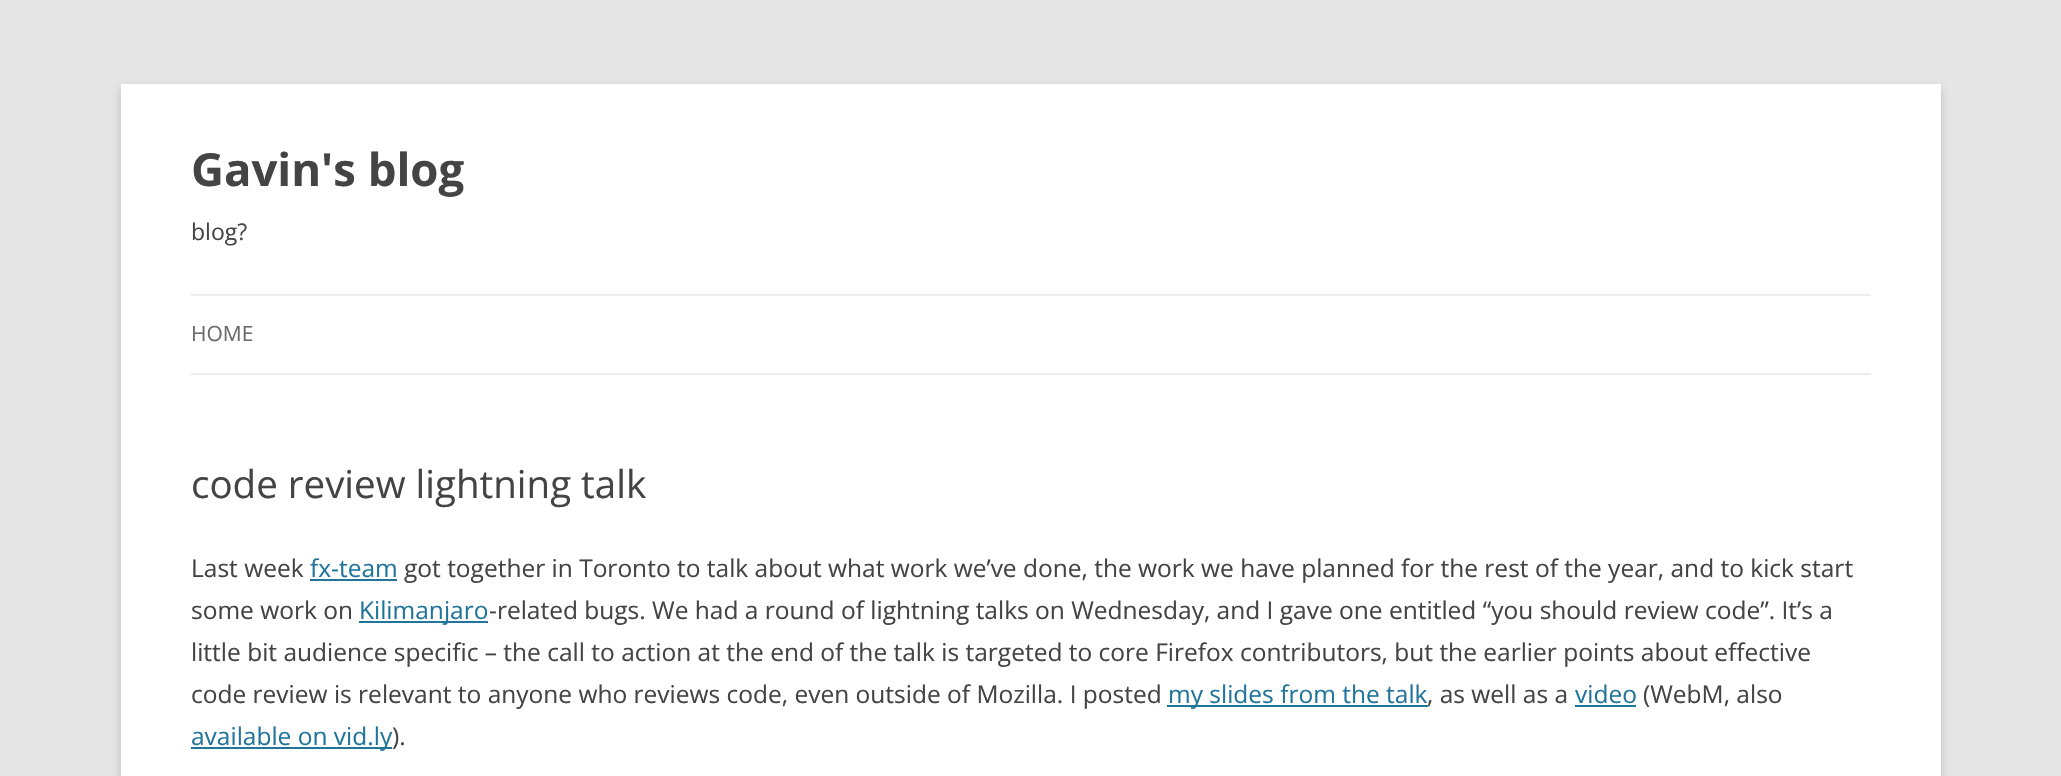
void draw(SkCanvas* canvas) {
    SkPaint paint;
    paint.setAntiAlias(true);
    auto face = [&](const char* family, int weight, float size, bool italic = false) {
        SkFontStyle style(weight, SkFontStyle::kNormal_Width,
            italic ? SkFontStyle::kItalic_Slant : SkFontStyle::kUpright_Slant);
        SkFont result(fontMgr->matchFamilyStyle(family, style), size);
        result.setSubpixel(true);
        return result;
    };
    auto write = [&](const char* s, float x, float y, const SkFont& font, SkColor color) {
        SkPaint ink(SkColor4f::FromColor(color));
        ink.setAntiAlias(true);
        canvas->drawString(s, x, y, font, ink);
    };
    auto block = [&](float x, float y, float w, float h, SkColor color) {
        SkPaint ink(SkColor4f::FromColor(color));
        ink.setAntiAlias(true);
        canvas->drawRect(SkRect::MakeXYWH(x, y, w, h), ink);
    };
    canvas->clear(SkColorSetRGB(230, 230, 230));
    paint.setColor(SkColorSetARGB(77, 100, 100, 100));
    paint.setMaskFilter(SkMaskFilter::MakeBlur(kNormal_SkBlurStyle, 5));
    canvas->drawRect(SkRect::MakeXYWH(121, 88, 1820, 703), paint);
    paint.setMaskFilter(nullptr);
    block(121, 84, 1820, 692, SK_ColorWHITE);
    auto kFont1 = face("Open Sans", 700, 45.5f);
    write("Gavin's blog", 191, 186, kFont1, SkColorSetRGB(68, 68, 68));
    auto kFont2 = face("Open Sans", 400, 23);
    write("blog?", 191, 240, kFont2, SkColorSetRGB(68, 68, 68));
    block(191, 294, 1680, 2, SkColorSetRGB(237, 237, 237));
    block(191, 373, 1680, 2, SkColorSetRGB(237, 237, 237));
    auto kFont3 = face("Open Sans", 400, 21);
    write("HOME", 191, 341, kFont3, SkColorSetRGB(106, 106, 106));
    auto kFont4 = face("Open Sans", 400, 38.5f);
    write("code review lightning talk", 191, 498, kFont4, SkColorSetRGB(68, 68, 68));
    auto kFont5 = face("Open Sans", 400, 24.5f);
    write("Last week", 191, 577, kFont5, SkColorSetRGB(68, 68, 68));
    write("fx-team", 310, 577, kFont5, SkColorSetRGB(33, 117, 155));
    block(310, 579, 87, 2, SkColorSetRGB(33, 117, 155));
    write("got together in Toronto to talk about what work we’ve done, the work we have planned for the rest of the year, and to kick start", 404, 577, kFont5, SkColorSetRGB(68, 68, 68));
    write("some work on", 191, 619, kFont5, SkColorSetRGB(68, 68, 68));
    block(359, 621, 129, 2, SkColorSetRGB(33, 117, 155));
    write("Kilimanjaro", 359, 619, kFont5, SkColorSetRGB(33, 117, 155));
    write("-related bugs. We had a round of lightning talks on Wednesday, and I gave one entitled “you should review code”. It’s a", 489, 619, kFont5, SkColorSetRGB(68, 68, 68));
    write("little bit audience specific – the call to action at the end of the talk is targeted to core Firefox contributors, but the earlier points about effective", 191, 661, kFont5, SkColorSetRGB(68, 68, 68));
    write("code review is relevant to anyone who reviews code, even outside of Mozilla. I posted", 191, 703, kFont5, SkColorSetRGB(68, 68, 68));
    block(1167, 705, 261, 2, SkColorSetRGB(33, 117, 155));
    write("my slides from the talk", 1168, 703, kFont5, SkColorSetRGB(33, 117, 155));
    write(", as well as a", 1427, 703, kFont5, SkColorSetRGB(68, 68, 68));
    write("video", 1575, 703, kFont5, SkColorSetRGB(33, 117, 155));
    block(1575, 705, 61, 2, SkColorSetRGB(33, 117, 155));
    write("(WebM, also", 1643, 703, kFont5, SkColorSetRGB(68, 68, 68));
    block(191, 747, 201, 2, SkColorSetRGB(33, 117, 155));
    write("available on vid.ly", 191, 745, kFont5, SkColorSetRGB(33, 117, 155));
    write(").", 392, 745, kFont5, SkColorSetRGB(68, 68, 68));
}
